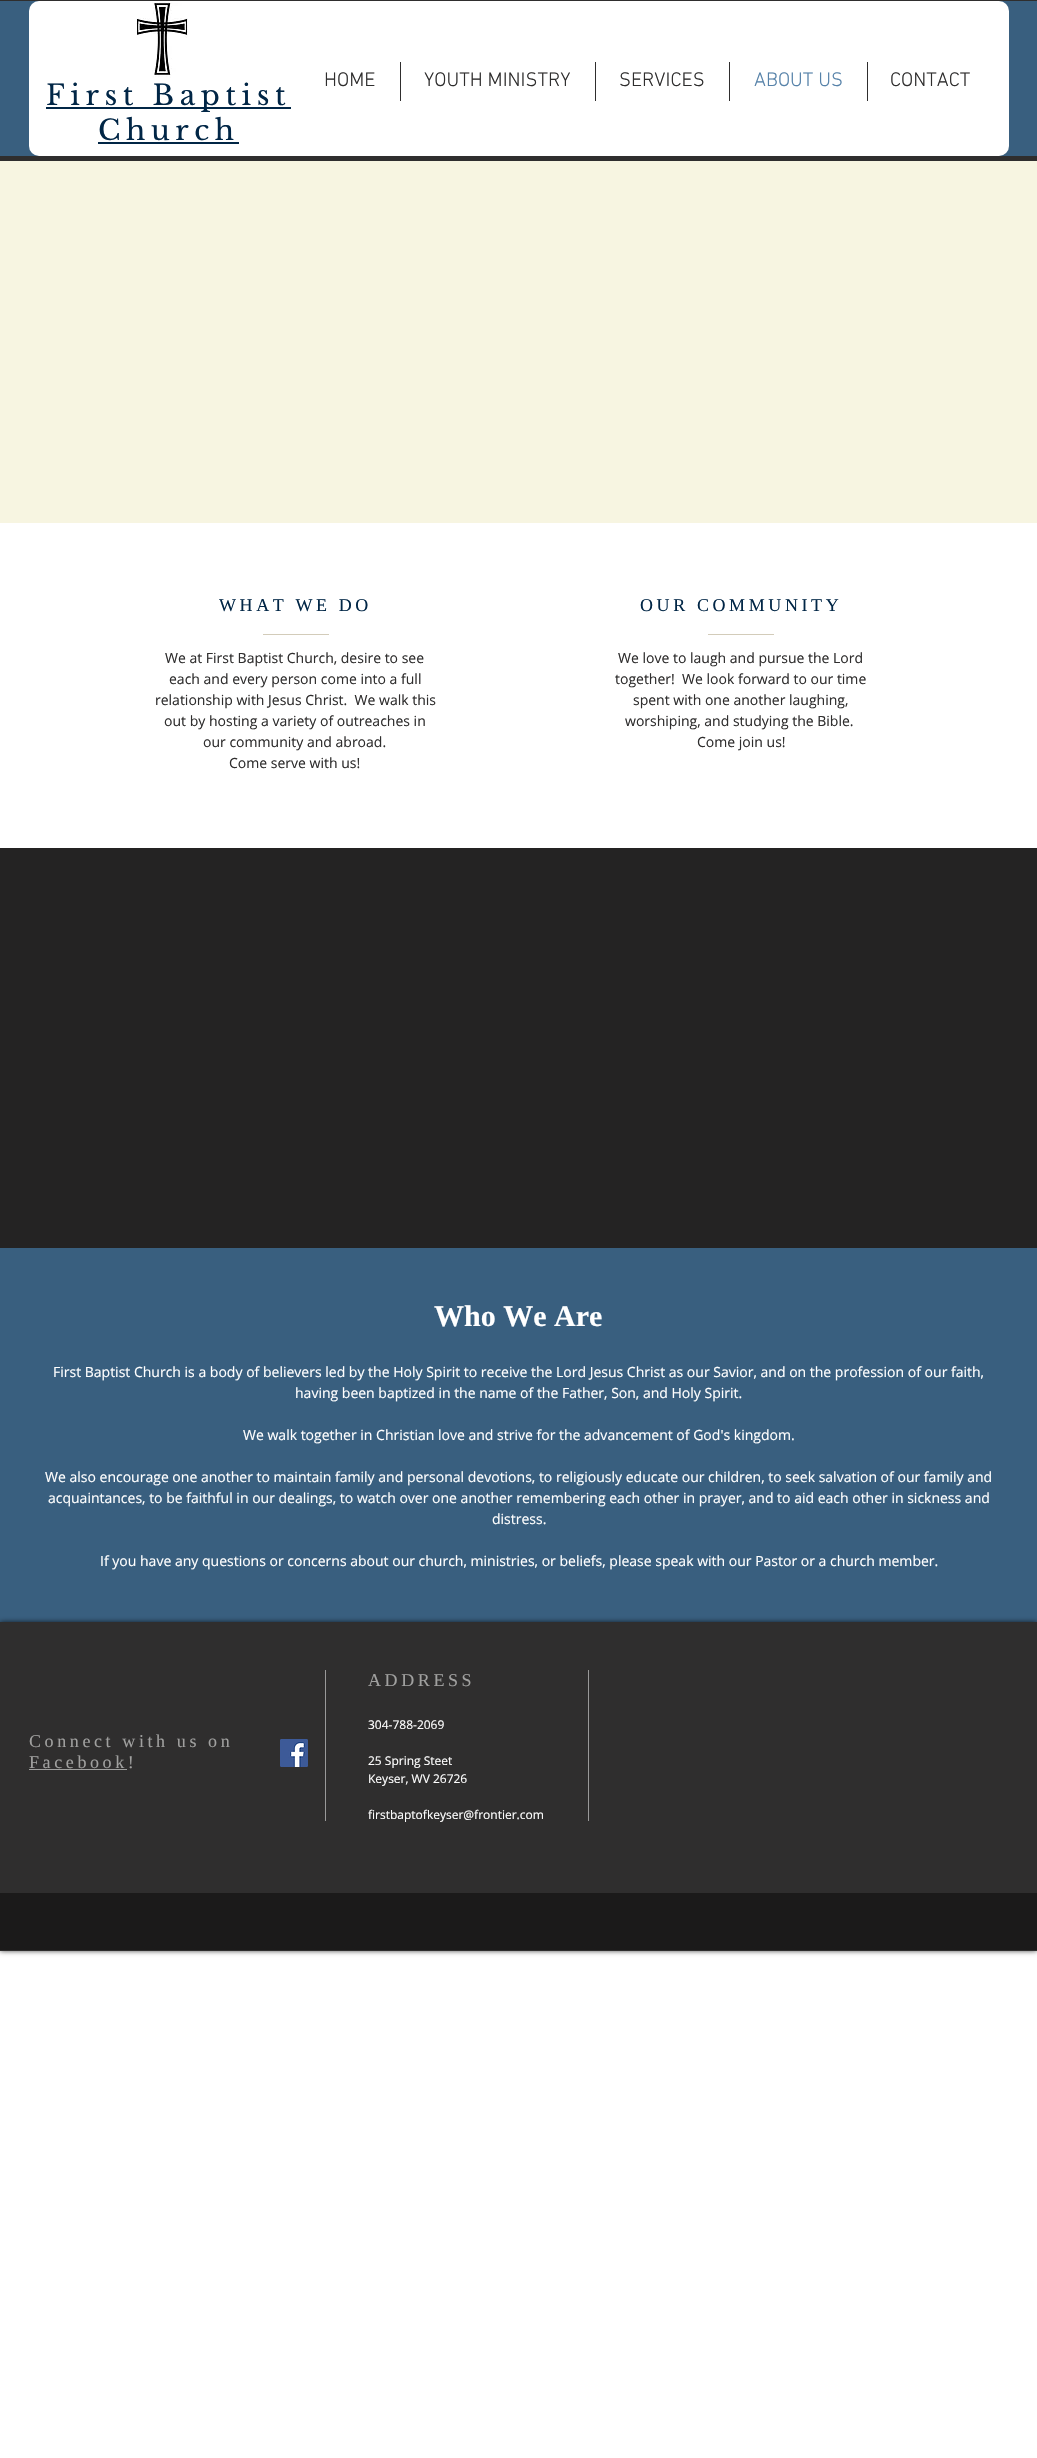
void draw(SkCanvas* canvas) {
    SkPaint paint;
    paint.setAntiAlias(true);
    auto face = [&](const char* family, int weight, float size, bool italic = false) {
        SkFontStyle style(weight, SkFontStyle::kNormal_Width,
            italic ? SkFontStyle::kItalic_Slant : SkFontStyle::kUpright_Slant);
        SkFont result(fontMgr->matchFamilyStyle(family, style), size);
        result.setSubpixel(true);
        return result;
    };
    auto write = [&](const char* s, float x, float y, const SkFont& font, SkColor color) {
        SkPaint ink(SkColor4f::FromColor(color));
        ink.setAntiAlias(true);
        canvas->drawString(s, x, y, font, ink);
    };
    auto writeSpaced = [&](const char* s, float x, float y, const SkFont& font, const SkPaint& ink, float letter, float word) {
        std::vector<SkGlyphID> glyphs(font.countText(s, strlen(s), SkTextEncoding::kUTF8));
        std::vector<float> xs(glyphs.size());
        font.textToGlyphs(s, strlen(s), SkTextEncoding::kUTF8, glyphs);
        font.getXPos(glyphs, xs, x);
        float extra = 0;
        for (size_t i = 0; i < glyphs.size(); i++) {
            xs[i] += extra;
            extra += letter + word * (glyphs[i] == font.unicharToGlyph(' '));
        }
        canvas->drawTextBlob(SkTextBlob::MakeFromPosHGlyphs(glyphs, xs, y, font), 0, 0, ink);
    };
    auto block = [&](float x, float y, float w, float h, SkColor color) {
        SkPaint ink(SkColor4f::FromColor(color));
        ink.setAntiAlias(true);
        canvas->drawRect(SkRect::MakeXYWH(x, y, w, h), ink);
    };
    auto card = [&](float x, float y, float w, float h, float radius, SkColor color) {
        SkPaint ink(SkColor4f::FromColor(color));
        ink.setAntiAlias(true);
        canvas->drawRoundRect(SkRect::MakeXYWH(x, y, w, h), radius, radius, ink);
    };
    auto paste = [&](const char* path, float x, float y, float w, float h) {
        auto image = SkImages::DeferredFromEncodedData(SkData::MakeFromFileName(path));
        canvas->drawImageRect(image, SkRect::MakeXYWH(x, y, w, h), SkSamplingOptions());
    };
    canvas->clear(SK_ColorWHITE);
    block(0, 1, 1037, 155, SkColorSetRGB(57, 95, 127));
    block(0, 0, 1037, 1, SkColorSetRGB(47, 46, 46));
    block(0, 156, 1037, 5, SkColorSetRGB(47, 46, 46));
    card(29, 1, 980, 155, 10, SK_ColorWHITE);
    paste("pic1.png", 136, 2, 52, 76);
    auto kFont1 = face("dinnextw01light", 300, 20);
    write("HOME", 324, 86, kFont1, SkColorSetRGB(47, 46, 46));
    block(400, 62, 1, 39, SkColorSetRGB(47, 46, 46));
    write("YOUTH MINISTRY", 424, 86, kFont1, SkColorSetRGB(47, 46, 46));
    block(595, 62, 1, 39, SkColorSetRGB(47, 46, 46));
    write("SERVICES", 619, 86, kFont1, SkColorSetRGB(47, 46, 46));
    block(729, 62, 1, 39, SkColorSetRGB(47, 46, 46));
    write("ABOUT US", 754, 86, kFont1, SkColorSetRGB(86, 130, 169));
    block(867, 62, 1, 39, SkColorSetRGB(47, 46, 46));
    write("CONTACT", 890, 86, kFont1, SkColorSetRGB(47, 46, 46));
    block(46, 107, 245, 2, SkColorSetRGB(1, 38, 70));
    auto kFont2 = face("Libre Baskerville", 400, 28);
    paint.setColor(SkColorSetRGB(1, 38, 70));
    writeSpaced("First Baptist", 46, 105, kFont2, paint, 5.6f, 0);
    writeSpaced("Church", 98, 140, kFont2, paint, 5.6f, 0);
    block(98, 142, 141, 2, SkColorSetRGB(1, 38, 70));
    block(0, 161, 1037, 362, SkColorSetRGB(247, 245, 225));
    auto kFont3 = face("Liberation Serif", 400, 18);
    writeSpaced("WHAT WE DO", 219, 611, kFont3, paint, 3.6f, 0);
    writeSpaced("OUR COMMUNITY", 640, 611, kFont3, paint, 3.6f, 0);
    block(263, 634, 66, 1, SkColorSetRGB(211, 204, 186));
    block(708, 634, 66, 1, SkColorSetRGB(211, 204, 186));
    auto kFont4 = face("Open Sans", 400, 14);
    write("We at First Baptist Church, desire to see", 165, 663, kFont4, SkColorSetRGB(47, 46, 46));
    write("each and every person come into a full", 169, 684, kFont4, SkColorSetRGB(47, 46, 46));
    write("relationship with Jesus Christ.  We walk this", 155, 705, kFont4, SkColorSetRGB(47, 46, 46));
    write("out by hosting a variety of outreaches in", 164, 726, kFont4, SkColorSetRGB(47, 46, 46));
    write("our community and abroad.", 203, 747, kFont4, SkColorSetRGB(47, 46, 46));
    write("Come serve with us!", 229, 768, kFont4, SkColorSetRGB(47, 46, 46));
    write("We love to laugh and pursue the Lord", 618, 663, kFont4, SkColorSetRGB(47, 46, 46));
    write("together!  We look forward to our time", 615, 684, kFont4, SkColorSetRGB(47, 46, 46));
    write("spent with one another laughing,", 633, 705, kFont4, SkColorSetRGB(47, 46, 46));
    write("worshiping, and studying the Bible.", 625, 726, kFont4, SkColorSetRGB(47, 46, 46));
    write("Come join us!", 697, 747, kFont4, SkColorSetRGB(47, 46, 46));
    block(0, 848, 1037, 400, SkColorSetRGB(36, 35, 35));
    block(0, 1248, 1037, 374, SkColorSetRGB(57, 95, 127));
    auto kFont5 = face("Liberation Serif", 700, 30);
    write("Who We Are", 434, 1326, kFont5, SK_ColorWHITE);
    write("First Baptist Church is a body of believers led by the Holy Spirit to receive the Lord Jesus Christ as our Savior, and on the profession of our faith,", 53, 1377, kFont4, SK_ColorWHITE);
    write("having been baptized in the name of the Father, Son, and Holy Spirit.", 295, 1398, kFont4, SK_ColorWHITE);
    write("We walk together in Christian love and strive for the advancement of God's kingdom.", 243, 1440, kFont4, SK_ColorWHITE);
    write("We also encourage one another to maintain family and personal devotions, to religiously educate our children, to seek salvation of our family and", 45, 1482, kFont4, SK_ColorWHITE);
    write("acquaintances, to be faithful in our dealings, to watch over one another remembering each other in prayer, and to aid each other in sickness and", 48, 1503, kFont4, SK_ColorWHITE);
    write("distress.", 492, 1524, kFont4, SK_ColorWHITE);
    write("If you have any questions or concerns about our church, ministries, or beliefs, please speak with our Pastor or a church member.", 100, 1566, kFont4, SK_ColorWHITE);
    paint.setColor(SkColorSetARGB(179, 0, 0, 0));
    paint.setMaskFilter(SkMaskFilter::MakeBlur(kNormal_SkBlurStyle, 2.5f));
    canvas->drawRect(SkRect::MakeXYWH(0, 1622, 1037, 329), paint);
    paint.setMaskFilter(nullptr);
    block(0, 1622, 1037, 329, SkColorSetRGB(47, 46, 46));
    block(325, 1670, 1, 151, SkColorSetRGB(153, 153, 153));
    paint.setColor(SkColorSetRGB(160, 160, 159));
    writeSpaced("ADDRESS", 368, 1686, kFont3, paint, 3.6f, 0);
    block(588, 1670, 1, 151, SkColorSetRGB(153, 153, 153));
    writeSpaced("Connect with us on", 29, 1747, kFont3, paint, 3.6f, 0);
    writeSpaced("Facebook!", 29, 1768, kFont3, paint, 3.6f, 0);
    block(29, 1769, 98, 1, SkColorSetRGB(160, 160, 159));
    paste("pic2.png", 280, 1739, 28, 28);
    auto kFont6 = face("Open Sans", 400, 12);
    write("304-788-2069", 368, 1729, kFont6, SK_ColorWHITE);
    write("25 Spring Steet", 368, 1765, kFont6, SK_ColorWHITE);
    write("Keyser, WV 26726", 368, 1783, kFont6, SK_ColorWHITE);
    write("firstbaptofkeyser@frontier.com", 368, 1819, kFont6, SK_ColorWHITE);
    block(0, 1893, 1037, 57, SkColorSetRGB(27, 26, 26));
}
